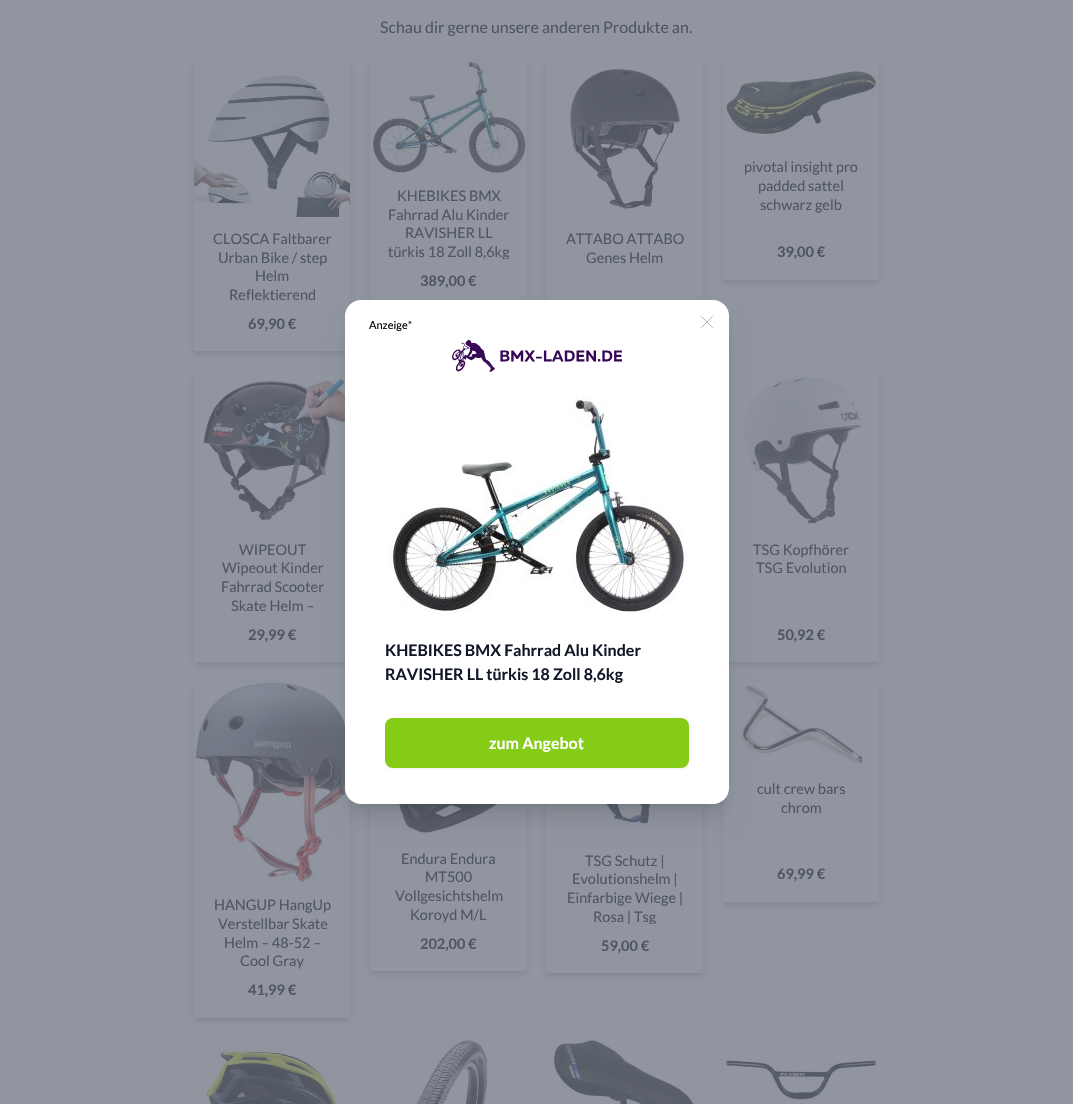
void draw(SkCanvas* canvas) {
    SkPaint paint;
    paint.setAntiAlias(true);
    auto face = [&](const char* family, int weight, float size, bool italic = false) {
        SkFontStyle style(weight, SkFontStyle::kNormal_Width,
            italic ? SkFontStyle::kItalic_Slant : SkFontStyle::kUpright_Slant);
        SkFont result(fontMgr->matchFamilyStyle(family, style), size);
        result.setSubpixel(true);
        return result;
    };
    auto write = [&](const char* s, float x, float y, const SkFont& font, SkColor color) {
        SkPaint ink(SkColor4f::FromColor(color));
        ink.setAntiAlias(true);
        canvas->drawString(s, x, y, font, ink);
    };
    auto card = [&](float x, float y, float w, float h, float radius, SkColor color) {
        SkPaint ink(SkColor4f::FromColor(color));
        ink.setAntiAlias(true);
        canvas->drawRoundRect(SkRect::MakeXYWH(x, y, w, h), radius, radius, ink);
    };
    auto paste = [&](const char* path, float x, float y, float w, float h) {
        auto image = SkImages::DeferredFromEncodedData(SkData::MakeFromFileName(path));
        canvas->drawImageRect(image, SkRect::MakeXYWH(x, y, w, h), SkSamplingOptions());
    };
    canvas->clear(SkColorSetRGB(144, 149, 160));
    auto kFont1 = face("Lato", 400, 16);
    write("Schau dir gerne unsere anderen Produkte an.", 380, 33, kFont1, SkColorSetRGB(80, 86, 96));
    canvas->save();
    canvas->clipPath(SkPathBuilder(SkPathFillType::kEvenOdd).moveTo(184, 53).lineTo(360, 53).lineTo(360, 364).lineTo(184, 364).close().moveTo(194, 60).lineTo(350, 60).lineTo(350, 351).lineTo(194, 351).close().detach(), true);
    paint.setColor(SkColorSetARGB(59, 80, 86, 96));
    paint.setMaskFilter(SkMaskFilter::MakeBlur(kNormal_SkBlurStyle, 3));
    canvas->drawRect(SkRect::MakeXYWH(194, 63, 156, 291), paint);
    paint.setMaskFilter(nullptr);
    canvas->restore();
    paste("pic1.png", 194, 75, 156, 142);
    auto kFont2 = face("Lato", 400, 14.5f);
    write("CLOSCA Faltbarer", 213, 244, kFont2, SkColorSetRGB(80, 86, 96));
    write("Urban Bike / step", 218, 263, kFont2, SkColorSetRGB(80, 86, 96));
    write("Helm", 255, 281, kFont2, SkColorSetRGB(80, 86, 96));
    write("Reflektierend", 229, 300, kFont2, SkColorSetRGB(80, 86, 96));
    auto kFont3 = face("Lato", 700, 14.5f);
    write("69,90 €", 248, 329, kFont3, SkColorSetRGB(80, 86, 96));
    canvas->save();
    canvas->clipPath(SkPathBuilder(SkPathFillType::kEvenOdd).moveTo(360, 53).lineTo(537, 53).lineTo(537, 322).lineTo(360, 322).close().moveTo(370, 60).lineTo(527, 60).lineTo(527, 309).lineTo(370, 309).close().detach(), true);
    paint.setMaskFilter(SkMaskFilter::MakeBlur(kNormal_SkBlurStyle, 3));
    canvas->drawRect(SkRect::MakeXYWH(370, 63, 157, 249), paint);
    paint.setMaskFilter(nullptr);
    canvas->restore();
    paste("pic2.png", 371, 60, 155, 113);
    write("KHEBIKES BMX", 397, 201, kFont2, SkColorSetRGB(80, 86, 96));
    write("Fahrrad Alu Kinder", 388, 220, kFont2, SkColorSetRGB(80, 86, 96));
    write("RAVISHER LL", 405, 238, kFont2, SkColorSetRGB(80, 86, 96));
    canvas->save();
    canvas->clipRect(SkRect::MakeXYWH(387, 184, 122, 75));
    write("türkis 18 Zoll 8,6kg", 388, 257, kFont2, SkColorSetRGB(80, 86, 96));
    canvas->restore();
    write("389,00 €", 420, 286, kFont3, SkColorSetRGB(80, 86, 96));
    canvas->save();
    canvas->clipPath(SkPathBuilder(SkPathFillType::kEvenOdd).moveTo(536, 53).lineTo(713, 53).lineTo(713, 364).lineTo(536, 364).close().moveTo(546, 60).lineTo(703, 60).lineTo(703, 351).lineTo(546, 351).close().detach(), true);
    paint.setMaskFilter(SkMaskFilter::MakeBlur(kNormal_SkBlurStyle, 3));
    canvas->drawRect(SkRect::MakeXYWH(546, 63, 157, 291), paint);
    paint.setMaskFilter(nullptr);
    canvas->restore();
    paste("pic3.png", 570, 68, 110, 143);
    write("ATTABO ATTABO", 566, 244, kFont2, SkColorSetRGB(80, 86, 96));
    write("Genes Helm", 586, 263, kFont2, SkColorSetRGB(80, 86, 96));
    canvas->save();
    canvas->clipPath(SkPathBuilder(SkPathFillType::kEvenOdd).moveTo(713, 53).lineTo(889, 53).lineTo(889, 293).lineTo(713, 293).close().moveTo(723, 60).lineTo(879, 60).lineTo(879, 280).lineTo(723, 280).close().detach(), true);
    paint.setMaskFilter(SkMaskFilter::MakeBlur(kNormal_SkBlurStyle, 3));
    canvas->drawRect(SkRect::MakeXYWH(723, 63, 156, 220), paint);
    paint.setMaskFilter(nullptr);
    canvas->restore();
    paste("pic4.png", 723, 68, 156, 67);
    write("pivotal insight pro", 744, 172, kFont2, SkColorSetRGB(80, 86, 96));
    write("padded sattel", 758, 191, kFont2, SkColorSetRGB(80, 86, 96));
    write("schwarz gelb", 760, 210, kFont2, SkColorSetRGB(80, 86, 96));
    write("39,00 €", 777, 257, kFont3, SkColorSetRGB(80, 86, 96));
    canvas->save();
    canvas->clipPath(SkPathBuilder(SkPathFillType::kEvenOdd).moveTo(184, 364).lineTo(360, 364).lineTo(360, 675).lineTo(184, 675).close().moveTo(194, 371).lineTo(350, 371).lineTo(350, 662).lineTo(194, 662).close().detach(), true);
    paint.setMaskFilter(SkMaskFilter::MakeBlur(kNormal_SkBlurStyle, 3));
    canvas->drawRect(SkRect::MakeXYWH(194, 374, 156, 291), paint);
    paint.setMaskFilter(nullptr);
    canvas->restore();
    paste("pic5.png", 203, 379, 142, 143);
    write("WIPEOUT", 239, 555, kFont2, SkColorSetRGB(80, 86, 96));
    write("Wipeout Kinder", 222, 573, kFont2, SkColorSetRGB(80, 86, 96));
    write("Fahrrad Scooter", 221, 592, kFont2, SkColorSetRGB(80, 86, 96));
    write("Skate Helm –", 231, 611, kFont2, SkColorSetRGB(80, 86, 96));
    write("29,99 €", 248, 640, kFont3, SkColorSetRGB(80, 86, 96));
    canvas->save();
    canvas->clipPath(SkPathBuilder(SkPathFillType::kEvenOdd).moveTo(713, 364).lineTo(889, 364).lineTo(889, 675).lineTo(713, 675).close().moveTo(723, 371).lineTo(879, 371).lineTo(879, 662).lineTo(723, 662).close().detach(), true);
    paint.setMaskFilter(SkMaskFilter::MakeBlur(kNormal_SkBlurStyle, 3));
    canvas->drawRect(SkRect::MakeXYWH(723, 374, 156, 291), paint);
    paint.setMaskFilter(nullptr);
    canvas->restore();
    paste("pic6.png", 742, 375, 120, 150);
    write("TSG Kopfhörer", 753, 555, kFont2, SkColorSetRGB(80, 86, 96));
    write("TSG Evolution", 756, 573, kFont2, SkColorSetRGB(80, 86, 96));
    write("50,92 €", 777, 640, kFont3, SkColorSetRGB(80, 86, 96));
    canvas->save();
    canvas->clipPath(SkPathBuilder(SkPathFillType::kEvenOdd).moveTo(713, 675).lineTo(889, 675).lineTo(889, 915).lineTo(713, 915).close().moveTo(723, 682).lineTo(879, 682).lineTo(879, 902).lineTo(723, 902).close().detach(), true);
    paint.setMaskFilter(SkMaskFilter::MakeBlur(kNormal_SkBlurStyle, 3));
    canvas->drawRect(SkRect::MakeXYWH(723, 685, 156, 220), paint);
    paint.setMaskFilter(nullptr);
    canvas->restore();
    paste("pic7.png", 740, 682, 125, 85);
    write("cult crew bars", 757, 794, kFont2, SkColorSetRGB(80, 86, 96));
    write("chrom", 781, 813, kFont2, SkColorSetRGB(80, 86, 96));
    write("69,99 €", 777, 879, kFont3, SkColorSetRGB(80, 86, 96));
    canvas->save();
    canvas->clipPath(SkPathBuilder(SkPathFillType::kEvenOdd).moveTo(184, 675).lineTo(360, 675).lineTo(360, 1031).lineTo(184, 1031).close().moveTo(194, 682).lineTo(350, 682).lineTo(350, 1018).lineTo(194, 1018).close().detach(), true);
    paint.setMaskFilter(SkMaskFilter::MakeBlur(kNormal_SkBlurStyle, 3));
    canvas->drawRect(SkRect::MakeXYWH(194, 685, 156, 336), paint);
    paint.setMaskFilter(nullptr);
    canvas->restore();
    paste("pic8.png", 194, 682, 154, 201);
    write("HANGUP HangUp", 214, 910, kFont2, SkColorSetRGB(80, 86, 96));
    write("Verstellbar Skate", 218, 929, kFont2, SkColorSetRGB(80, 86, 96));
    write("Helm – 48-52 –", 224, 948, kFont2, SkColorSetRGB(80, 86, 96));
    write("Cool Gray", 240, 966, kFont2, SkColorSetRGB(80, 86, 96));
    write("41,99 €", 248, 995, kFont3, SkColorSetRGB(80, 86, 96));
    canvas->save();
    canvas->clipPath(SkPathBuilder(SkPathFillType::kEvenOdd).moveTo(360, 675).lineTo(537, 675).lineTo(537, 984).lineTo(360, 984).close().moveTo(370, 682).lineTo(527, 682).lineTo(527, 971).lineTo(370, 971).close().detach(), true);
    paint.setMaskFilter(SkMaskFilter::MakeBlur(kNormal_SkBlurStyle, 3));
    canvas->drawRect(SkRect::MakeXYWH(370, 685, 157, 289), paint);
    paint.setMaskFilter(nullptr);
    canvas->restore();
    paste("pic9.png", 373, 804, 151, 30);
    write("Endura Endura", 401, 864, kFont2, SkColorSetRGB(80, 86, 96));
    write("MT500", 425, 882, kFont2, SkColorSetRGB(80, 86, 96));
    write("Vollgesichtshelm", 395, 901, kFont2, SkColorSetRGB(80, 86, 96));
    write("Koroyd M/L", 410, 920, kFont2, SkColorSetRGB(80, 86, 96));
    write("202,00 €", 420, 949, kFont3, SkColorSetRGB(80, 86, 96));
    canvas->save();
    canvas->clipPath(SkPathBuilder(SkPathFillType::kEvenOdd).moveTo(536, 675).lineTo(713, 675).lineTo(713, 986).lineTo(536, 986).close().moveTo(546, 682).lineTo(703, 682).lineTo(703, 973).lineTo(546, 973).close().detach(), true);
    paint.setMaskFilter(SkMaskFilter::MakeBlur(kNormal_SkBlurStyle, 3));
    canvas->drawRect(SkRect::MakeXYWH(546, 685, 157, 291), paint);
    paint.setMaskFilter(nullptr);
    canvas->restore();
    paste("pic10.png", 563, 804, 119, 21);
    write("TSG Schutz |", 585, 866, kFont2, SkColorSetRGB(80, 86, 96));
    write("Evolutionshelm |", 572, 884, kFont2, SkColorSetRGB(80, 86, 96));
    write("Einfarbige Wiege |", 567, 903, kFont2, SkColorSetRGB(80, 86, 96));
    canvas->save();
    canvas->clipRect(SkRect::MakeXYWH(564, 849, 122, 75));
    write("Rosa | Tsg", 593, 922, kFont2, SkColorSetRGB(80, 86, 96));
    canvas->restore();
    write("59,00 €", 601, 951, kFont3, SkColorSetRGB(80, 86, 96));
    paste("pic11.png", 202, 1045, 137, 59);
    paste("pic12.png", 416, 1039, 72, 65);
    paste("pic13.png", 550, 1037, 147, 67);
    paste("pic14.png", 723, 1058, 154, 42);
    paint.setColor(SkColorSetARGB(26, 0, 0, 0));
    paint.setMaskFilter(SkMaskFilter::MakeBlur(kNormal_SkBlurStyle, 5));
    canvas->drawRoundRect(SkRect::MakeXYWH(351, 314, 372, 492), 10, 10, paint);
    paint.setMaskFilter(nullptr);
    paint.setMaskFilter(SkMaskFilter::MakeBlur(kNormal_SkBlurStyle, 12.5f));
    canvas->drawRoundRect(SkRect::MakeXYWH(350, 325, 374, 494), 11, 11, paint);
    paint.setMaskFilter(nullptr);
    card(345, 300, 384, 504, 16, SK_ColorWHITE);
    auto kFont4 = face("Lato", 400, 11);
    write("Anzeige*", 369, 329, kFont4, SK_ColorBLACK);
    paint.setStyle(SkPaint::kStroke_Style);
    paint.setStrokeWidth(0.8f);
    paint.setStrokeCap(SkPaint::kRound_Cap);
    paint.setStrokeJoin(SkPaint::kRound_Join);
    paint.setColor(SkColorSetRGB(156, 163, 175));
    canvas->drawPath(SkPathBuilder().moveTo(701.5f, 327.5f).lineTo(712.5f, 316.5f).moveTo(701.5f, 316.5f).lineTo(712.5f, 327.5f).detach(), paint);
    paste("pic15.png", 452, 340, 170, 32);
    paste("pic16.png", 388, 396, 299, 216);
    auto kFont5 = face("Lato", 700, 16);
    write("KHEBIKES BMX Fahrrad Alu Kinder", 385, 656, kFont5, SkColorSetRGB(17, 24, 39));
    write("RAVISHER LL türkis 18 Zoll 8,6kg", 385, 680, kFont5, SkColorSetRGB(17, 24, 39));
    paint.setStyle(SkPaint::kFill_Style);
    paint.setColor(SkColorSetARGB(13, 0, 0, 0));
    paint.setMaskFilter(SkMaskFilter::MakeBlur(kNormal_SkBlurStyle, 1));
    canvas->drawRoundRect(SkRect::MakeXYWH(385, 719, 304, 50), 8, 8, paint);
    paint.setMaskFilter(nullptr);
    card(385, 718, 304, 50, 8, SkColorSetRGB(132, 204, 22));
    write("zum Angebot", 489, 749, kFont5, SK_ColorWHITE);
}
